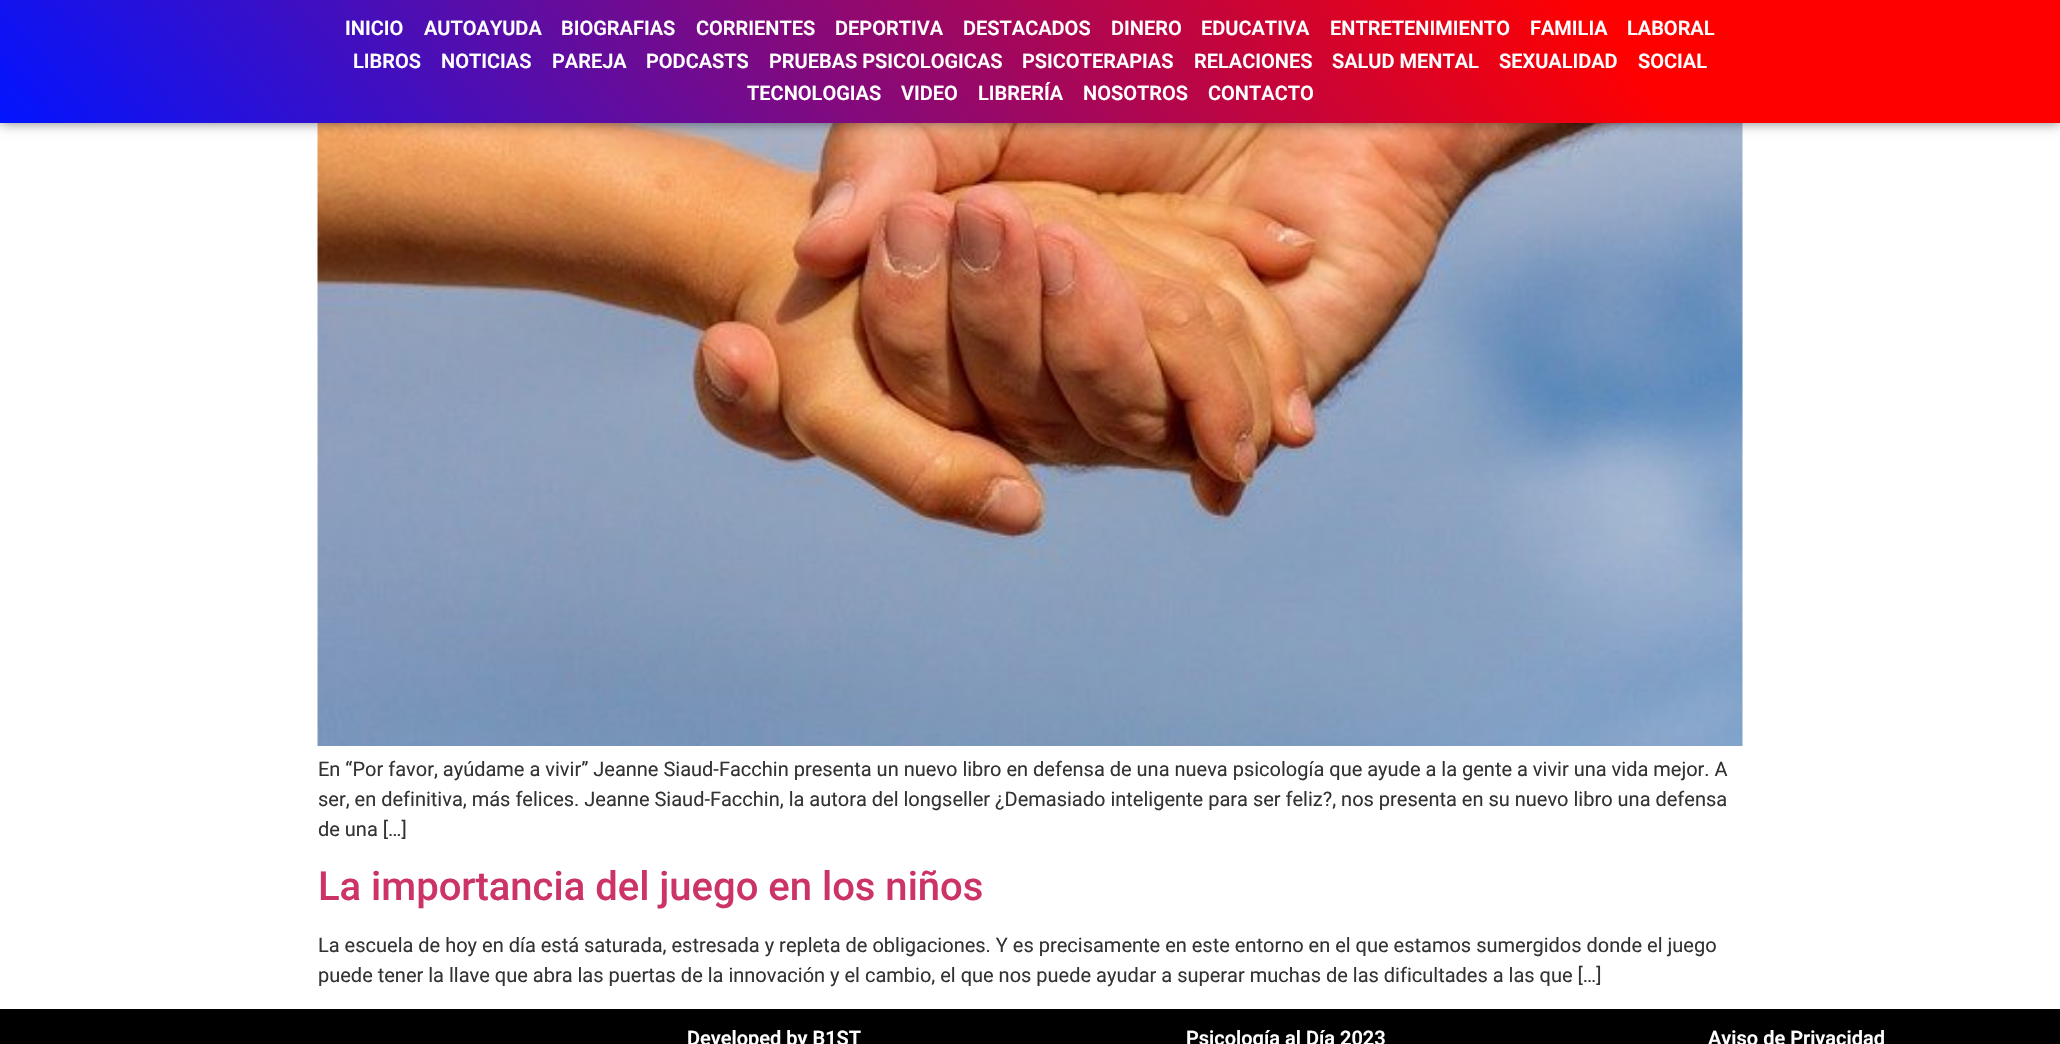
void draw(SkCanvas* canvas) {
    SkPaint paint;
    paint.setAntiAlias(true);
    auto face = [&](const char* family, int weight, float size, bool italic = false) {
        SkFontStyle style(weight, SkFontStyle::kNormal_Width,
            italic ? SkFontStyle::kItalic_Slant : SkFontStyle::kUpright_Slant);
        SkFont result(fontMgr->matchFamilyStyle(family, style), size);
        result.setSubpixel(true);
        return result;
    };
    auto write = [&](const char* s, float x, float y, const SkFont& font, SkColor color) {
        SkPaint ink(SkColor4f::FromColor(color));
        ink.setAntiAlias(true);
        canvas->drawString(s, x, y, font, ink);
    };
    auto block = [&](float x, float y, float w, float h, SkColor color) {
        SkPaint ink(SkColor4f::FromColor(color));
        ink.setAntiAlias(true);
        canvas->drawRect(SkRect::MakeXYWH(x, y, w, h), ink);
    };
    auto paste = [&](const char* path, float x, float y, float w, float h) {
        auto image = SkImages::DeferredFromEncodedData(SkData::MakeFromFileName(path));
        canvas->drawImageRect(image, SkRect::MakeXYWH(x, y, w, h), SkSamplingOptions());
    };
    canvas->clear(SK_ColorWHITE);
    paste("pic1.png", 317, 123, 1426, 623);
    paint.setColor(SkColorSetARGB(128, 0, 0, 0));
    paint.setMaskFilter(SkMaskFilter::MakeBlur(kNormal_SkBlurStyle, 6));
    canvas->drawRect(SkRect::MakeXYWH(0, 0, 2060, 123), paint);
    paint.setMaskFilter(nullptr);
    {
        const SkColor colors[] = {SkColorSetRGB(255, 0, 0), SkColorSetRGB(2, 20, 255)};
        const float stops[] = {0.22f, 1};
        const SkPoint ends[] = {{1665, -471}, {395, 594}};
        paint.setShader(SkGradientShader::MakeLinear(ends, colors, stops, 2, SkTileMode::kClamp));
        paint.setAlpha(255);
    }
    canvas->drawRect(SkRect::MakeXYWH(0, 0, 2060, 123), paint);
    auto kFont1 = face("Roboto", 600, 20);
    write("INICIO", 345, 35, kFont1, SK_ColorWHITE);
    write("AUTOAYUDA", 424, 35, kFont1, SK_ColorWHITE);
    write("BIOGRAFIAS", 561, 35, kFont1, SK_ColorWHITE);
    write("CORRIENTES", 696, 35, kFont1, SK_ColorWHITE);
    write("DEPORTIVA", 835, 35, kFont1, SK_ColorWHITE);
    write("DESTACADOS", 963, 35, kFont1, SK_ColorWHITE);
    write("DINERO", 1111, 35, kFont1, SK_ColorWHITE);
    write("EDUCATIVA", 1201, 35, kFont1, SK_ColorWHITE);
    write("ENTRETENIMIENTO", 1330, 35, kFont1, SK_ColorWHITE);
    write("FAMILIA", 1530, 35, kFont1, SK_ColorWHITE);
    write("LABORAL", 1627, 35, kFont1, SK_ColorWHITE);
    write("LIBROS", 353, 68, kFont1, SK_ColorWHITE);
    write("NOTICIAS", 441, 68, kFont1, SK_ColorWHITE);
    write("PAREJA", 552, 68, kFont1, SK_ColorWHITE);
    write("PODCASTS", 646, 68, kFont1, SK_ColorWHITE);
    write("PRUEBAS PSICOLOGICAS", 769, 68, kFont1, SK_ColorWHITE);
    write("PSICOTERAPIAS", 1022, 68, kFont1, SK_ColorWHITE);
    write("RELACIONES", 1194, 68, kFont1, SK_ColorWHITE);
    write("SALUD MENTAL", 1332, 68, kFont1, SK_ColorWHITE);
    write("SEXUALIDAD", 1499, 68, kFont1, SK_ColorWHITE);
    write("SOCIAL", 1638, 68, kFont1, SK_ColorWHITE);
    write("TECNOLOGIAS", 747, 100, kFont1, SK_ColorWHITE);
    write("VIDEO", 901, 100, kFont1, SK_ColorWHITE);
    write("LIBRERÍA", 978, 100, kFont1, SK_ColorWHITE);
    write("NOSOTROS", 1083, 100, kFont1, SK_ColorWHITE);
    write("CONTACTO", 1208, 100, kFont1, SK_ColorWHITE);
    auto kFont2 = face("Roboto", 400, 20);
    write("En “Por favor, ayúdame a vivir” Jeanne Siaud-Facchin presenta un nuevo libro en defensa de una nueva psicología que ayude a la gente a vivir una vida mejor. A", 318, 776, kFont2, SkColorSetRGB(51, 51, 51));
    write("ser, en definitiva, más felices. Jeanne Siaud-Facchin, la autora del longseller ¿Demasiado inteligente para ser feliz?, nos presenta en su nuevo libro una defensa", 318, 806, kFont2, SkColorSetRGB(51, 51, 51));
    write("de una […]", 318, 836, kFont2, SkColorSetRGB(51, 51, 51));
    auto kFont3 = face("Roboto", 500, 40);
    write("La importancia del juego en los niños", 318, 900, kFont3, SkColorSetRGB(204, 51, 102));
    write("La escuela de hoy en día está saturada, estresada y repleta de obligaciones. Y es precisamente en este entorno en el que estamos sumergidos donde el juego", 318, 952, kFont2, SkColorSetRGB(51, 51, 51));
    write("puede tener la llave que abra las puertas de la innovación y el cambio, el que nos puede ayudar a superar muchas de las dificultades a las que […]", 318, 982, kFont2, SkColorSetRGB(51, 51, 51));
    block(0, 1009, 2060, 35, SK_ColorBLACK);
    write("Developed by B1ST", 687, 1045, kFont1, SK_ColorWHITE);
    write("Psicología al Día 2023", 1186, 1045, kFont1, SK_ColorWHITE);
    write("Aviso de Privacidad", 1708, 1045, kFont1, SK_ColorWHITE);
}
